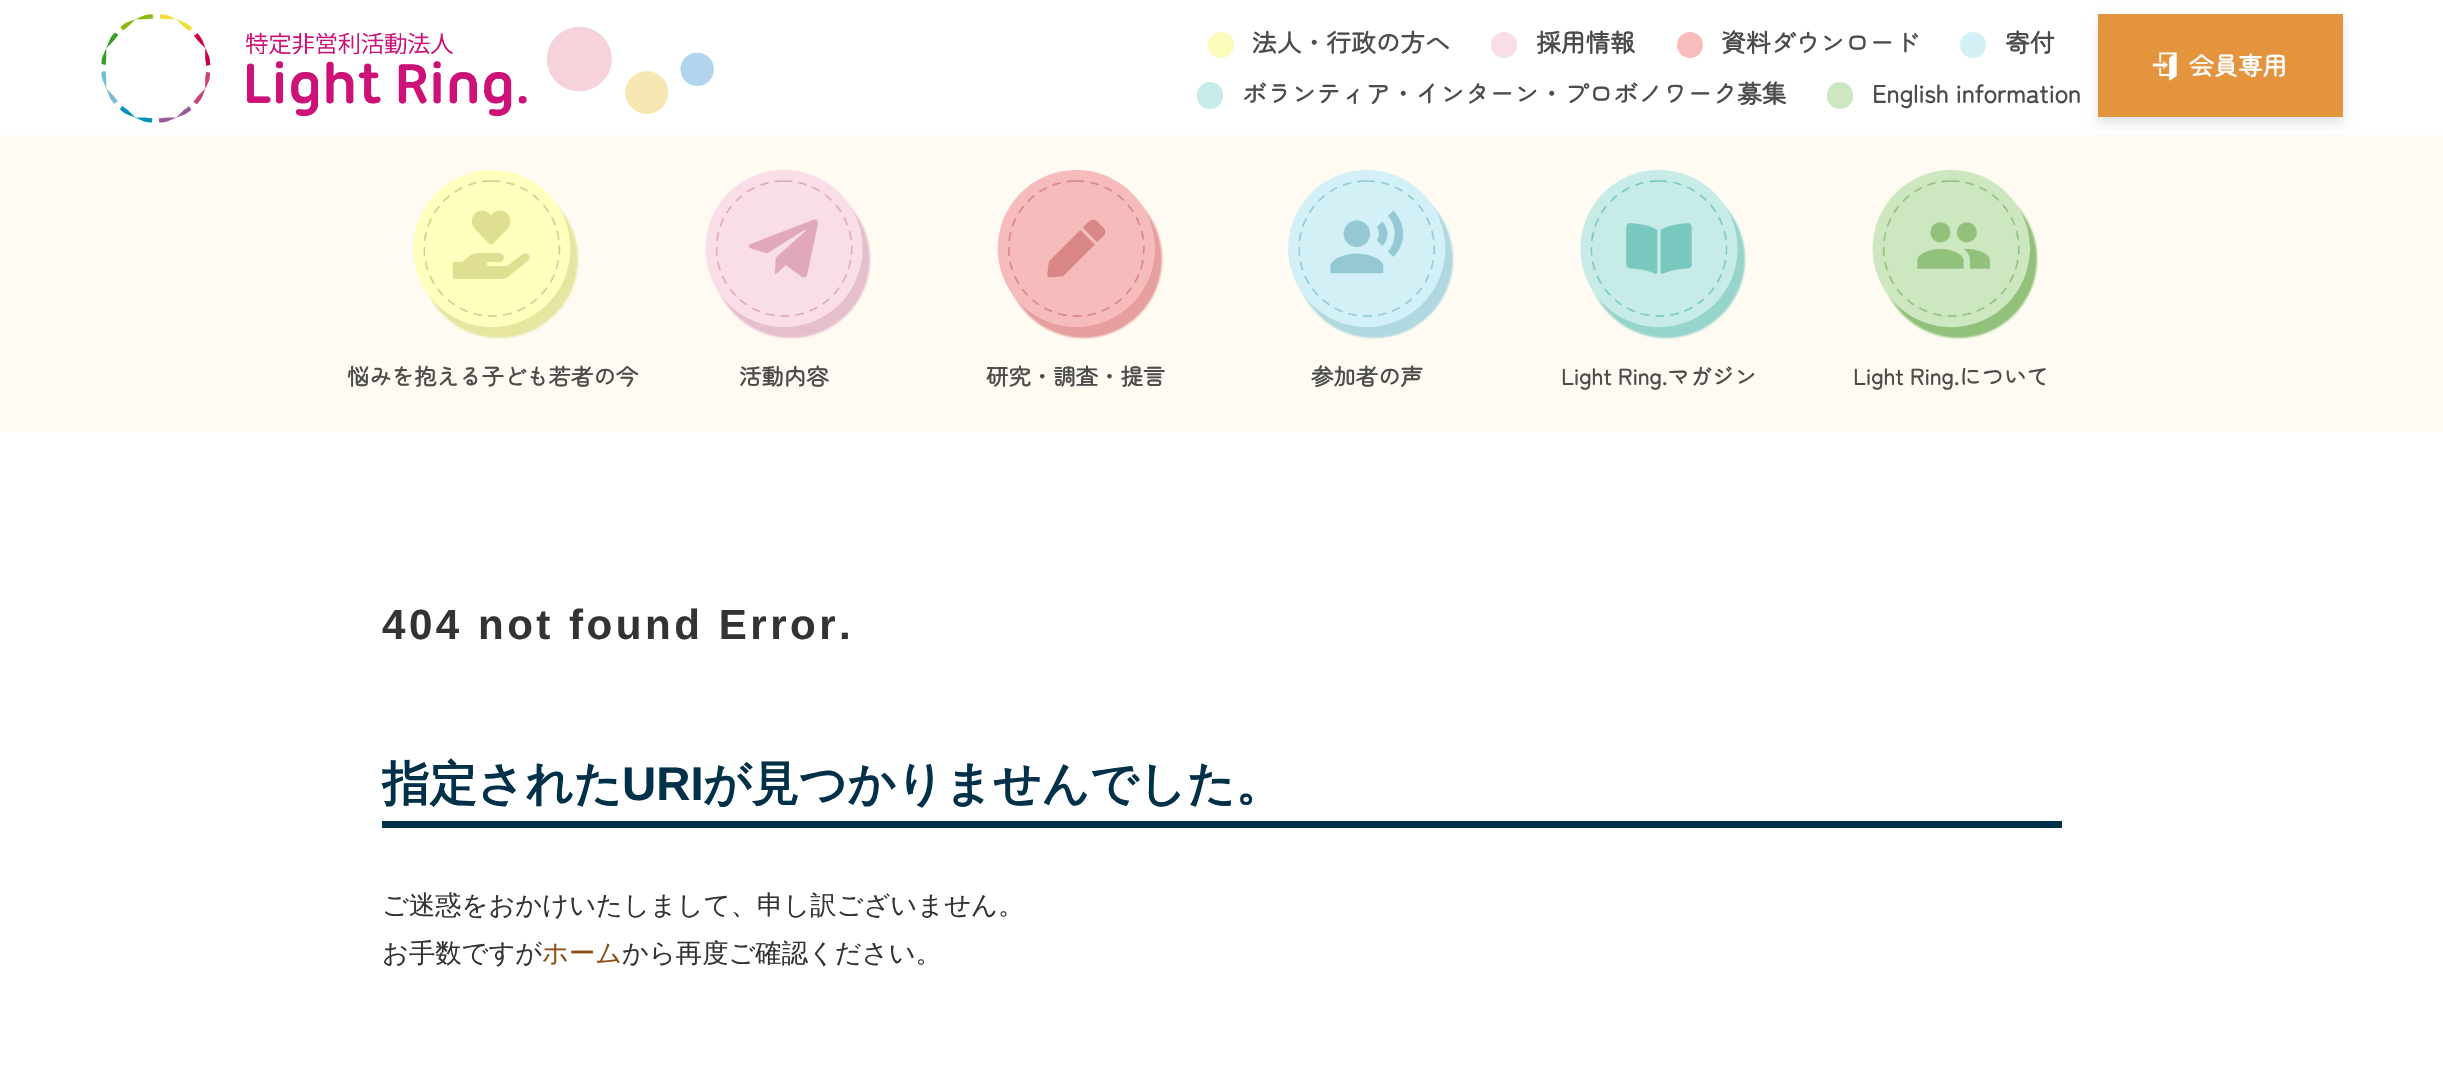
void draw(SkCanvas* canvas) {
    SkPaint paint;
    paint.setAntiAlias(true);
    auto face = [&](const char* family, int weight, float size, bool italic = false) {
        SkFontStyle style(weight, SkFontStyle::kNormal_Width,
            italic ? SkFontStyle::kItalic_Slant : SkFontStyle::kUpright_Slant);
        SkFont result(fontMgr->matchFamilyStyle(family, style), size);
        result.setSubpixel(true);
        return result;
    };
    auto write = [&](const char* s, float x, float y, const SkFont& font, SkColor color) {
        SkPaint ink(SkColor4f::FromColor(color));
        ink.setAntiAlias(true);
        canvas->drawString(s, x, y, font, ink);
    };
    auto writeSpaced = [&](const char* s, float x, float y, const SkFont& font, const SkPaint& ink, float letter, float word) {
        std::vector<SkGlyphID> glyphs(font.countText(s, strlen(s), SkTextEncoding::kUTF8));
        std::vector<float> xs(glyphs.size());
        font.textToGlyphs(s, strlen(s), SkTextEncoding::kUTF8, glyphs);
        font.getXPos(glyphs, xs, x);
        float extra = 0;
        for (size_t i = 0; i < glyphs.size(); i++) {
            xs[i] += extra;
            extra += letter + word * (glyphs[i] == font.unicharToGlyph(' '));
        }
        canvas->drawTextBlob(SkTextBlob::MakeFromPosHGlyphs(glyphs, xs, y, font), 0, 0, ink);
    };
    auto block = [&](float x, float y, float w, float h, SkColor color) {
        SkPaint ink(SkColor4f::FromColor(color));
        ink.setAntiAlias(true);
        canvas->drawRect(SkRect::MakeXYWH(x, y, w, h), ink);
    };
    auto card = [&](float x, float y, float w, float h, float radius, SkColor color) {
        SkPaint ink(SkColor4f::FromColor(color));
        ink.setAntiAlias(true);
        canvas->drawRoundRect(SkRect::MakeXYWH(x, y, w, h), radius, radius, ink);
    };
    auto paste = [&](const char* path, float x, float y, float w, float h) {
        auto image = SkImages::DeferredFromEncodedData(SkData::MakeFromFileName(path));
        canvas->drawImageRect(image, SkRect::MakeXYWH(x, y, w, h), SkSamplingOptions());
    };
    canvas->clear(SK_ColorWHITE);
    paste("pic1.png", 101, 14, 613, 109);
    paint.setColor(SkColorSetRGB(251, 251, 187));
    canvas->drawCircle(1221, 45, 13, paint);
    auto kFont1 = face("Zen Maru Gothic", 700, 24.75f);
    write("法人・行政の方へ", 1252, 52, kFont1, SkColorSetRGB(76, 76, 76));
    paint.setColor(SkColorSetRGB(250, 222, 231));
    canvas->drawCircle(1504, 45, 13, paint);
    write("採用情報", 1536, 52, kFont1, SkColorSetRGB(76, 76, 76));
    paint.setColor(SkColorSetRGB(247, 189, 189));
    canvas->drawCircle(1690, 45, 13, paint);
    write("資料ダウンロード", 1721, 52, kFont1, SkColorSetRGB(76, 76, 76));
    paint.setColor(SkColorSetRGB(210, 240, 246));
    canvas->drawCircle(1973, 45, 13, paint);
    write("寄付", 2005, 52, kFont1, SkColorSetRGB(76, 76, 76));
    card(1197, 82, 26, 27, 13, SkColorSetRGB(199, 235, 231));
    write("ボランティア・インターン・プロボノワーク募集", 1242, 103, kFont1, SkColorSetRGB(76, 76, 76));
    card(1827, 82, 26, 27, 13, SkColorSetRGB(205, 232, 192));
    write("English information", 1872, 103, kFont1, SkColorSetRGB(76, 76, 76));
    block(0, 135, 2443, 297, SkColorSetRGB(255, 251, 242));
    paint.setColor(SkColorSetARGB(26, 0, 0, 0));
    paint.setMaskFilter(SkMaskFilter::MakeBlur(kNormal_SkBlurStyle, 5));
    canvas->drawRect(SkRect::MakeXYWH(2098, 21, 245, 103), paint);
    paint.setMaskFilter(nullptr);
    block(2098, 14, 245, 103, SkColorSetRGB(227, 148, 61));
    paste("pic2.png", 2152, 52, 26, 29);
    auto kFont2 = face("Zen Maru Gothic", 700, 24.5f);
    write("会員専用", 2189, 75, kFont2, SK_ColorWHITE);
    paint.setColor(SkColorSetRGB(230, 230, 161));
    paint.setMaskFilter(SkMaskFilter::MakeBlur(kNormal_SkBlurStyle, 1));
    canvas->drawRoundRect(SkRect::MakeXYWH(420, 180, 158, 158), 79, 79, paint);
    paint.setMaskFilter(nullptr);
    paste("pic3.png", 413, 169, 158, 159);
    auto kFont3 = face("Zen Maru Gothic", 700, 22.4f);
    write("悩みを抱える子ども若者の今", 347, 385, kFont3, SkColorSetRGB(76, 76, 76));
    paint.setColor(SkColorSetRGB(230, 191, 204));
    paint.setMaskFilter(SkMaskFilter::MakeBlur(kNormal_SkBlurStyle, 1));
    canvas->drawRoundRect(SkRect::MakeXYWH(712, 180, 158, 158), 79, 79, paint);
    paint.setMaskFilter(nullptr);
    paste("pic4.png", 705, 169, 158, 159);
    write("活動内容", 739, 385, kFont3, SkColorSetRGB(76, 76, 76));
    paint.setColor(SkColorSetRGB(230, 158, 158));
    paint.setMaskFilter(SkMaskFilter::MakeBlur(kNormal_SkBlurStyle, 1));
    canvas->drawRoundRect(SkRect::MakeXYWH(1005, 180, 157, 158), 78.5f, 78.5f, paint);
    paint.setMaskFilter(nullptr);
    paste("pic5.png", 997, 169, 158, 158);
    write("研究・調査・提言", 986, 385, kFont3, SkColorSetRGB(76, 76, 76));
    paint.setColor(SkColorSetRGB(175, 216, 225));
    paint.setMaskFilter(SkMaskFilter::MakeBlur(kNormal_SkBlurStyle, 1));
    canvas->drawRoundRect(SkRect::MakeXYWH(1295, 180, 158, 158), 79, 79, paint);
    paint.setMaskFilter(nullptr);
    paste("pic6.png", 1288, 169, 158, 159);
    write("参加者の声", 1311, 385, kFont3, SkColorSetRGB(76, 76, 76));
    paint.setColor(SkColorSetRGB(150, 212, 204));
    paint.setMaskFilter(SkMaskFilter::MakeBlur(kNormal_SkBlurStyle, 1));
    canvas->drawRoundRect(SkRect::MakeXYWH(1587, 180, 158, 158), 79, 79, paint);
    paint.setMaskFilter(nullptr);
    paste("pic7.png", 1580, 169, 158, 159);
    write("Light Ring.マガジン", 1561, 385, kFont3, SkColorSetRGB(76, 76, 76));
    paint.setColor(SkColorSetRGB(146, 193, 124));
    paint.setMaskFilter(SkMaskFilter::MakeBlur(kNormal_SkBlurStyle, 1));
    canvas->drawRoundRect(SkRect::MakeXYWH(1880, 180, 157, 158), 78.5f, 78.5f, paint);
    paint.setMaskFilter(nullptr);
    paste("pic8.png", 1872, 169, 158, 159);
    write("Light Ring.について", 1853, 385, kFont3, SkColorSetRGB(76, 76, 76));
    auto kFont4 = face("Liberation Sans", 700, 42.1f);
    paint.setColor(SkColorSetRGB(51, 51, 51));
    writeSpaced("404 not found Error.", 382, 639, kFont4, paint, 3.5f, 0);
    block(382, 821, 1680, 7, SkColorSetRGB(0, 49, 73));
    auto kFont5 = face("WenQuanYi Zen Hei", 700, 47.4f);
    write("指定された", 382, 800, kFont5, SkColorSetRGB(0, 49, 73));
    auto kFont6 = face("Liberation Sans", 700, 47.4f);
    write("URI", 622, 800, kFont6, SkColorSetRGB(0, 49, 73));
    write("が見つかりませんでした。", 703, 800, kFont5, SkColorSetRGB(0, 49, 73));
    auto kFont7 = face("WenQuanYi Zen Hei", 500, 26.3f);
    write("ご迷惑をおかけいたしまして、申し訳ございません。", 382, 914, kFont7, SkColorSetRGB(51, 51, 51));
    write("お手数ですが", 382, 962, kFont7, SkColorSetRGB(51, 51, 51));
    write("ホーム", 542, 962, kFont7, SkColorSetRGB(140, 82, 23));
    write("から再度ご確認ください。", 622, 962, kFont7, SkColorSetRGB(51, 51, 51));
}
